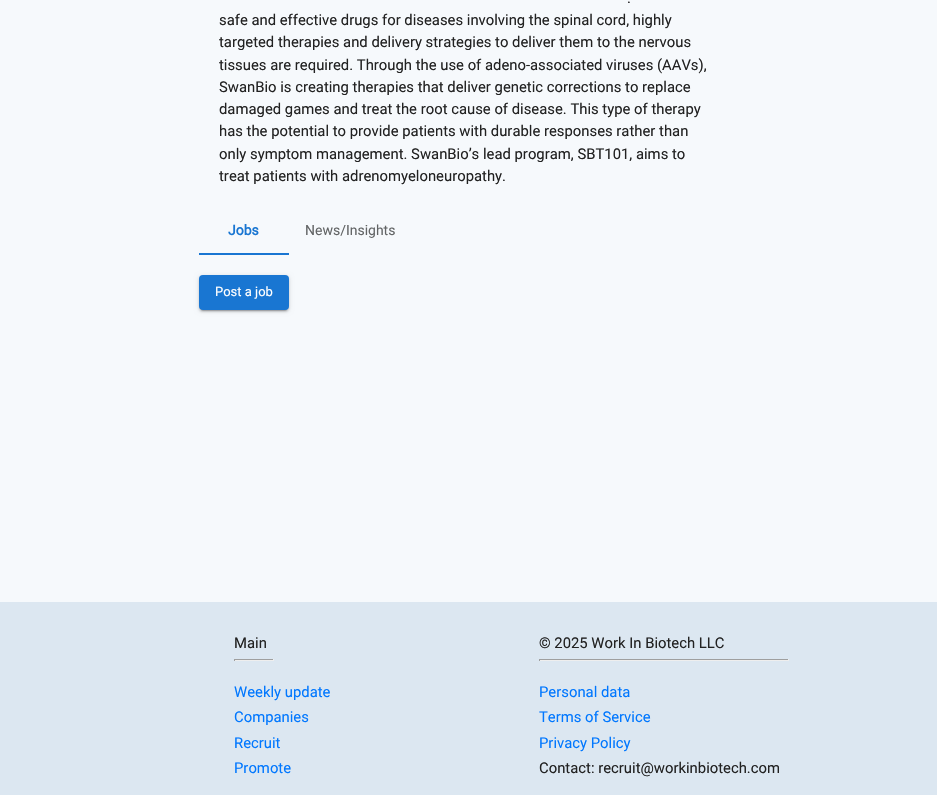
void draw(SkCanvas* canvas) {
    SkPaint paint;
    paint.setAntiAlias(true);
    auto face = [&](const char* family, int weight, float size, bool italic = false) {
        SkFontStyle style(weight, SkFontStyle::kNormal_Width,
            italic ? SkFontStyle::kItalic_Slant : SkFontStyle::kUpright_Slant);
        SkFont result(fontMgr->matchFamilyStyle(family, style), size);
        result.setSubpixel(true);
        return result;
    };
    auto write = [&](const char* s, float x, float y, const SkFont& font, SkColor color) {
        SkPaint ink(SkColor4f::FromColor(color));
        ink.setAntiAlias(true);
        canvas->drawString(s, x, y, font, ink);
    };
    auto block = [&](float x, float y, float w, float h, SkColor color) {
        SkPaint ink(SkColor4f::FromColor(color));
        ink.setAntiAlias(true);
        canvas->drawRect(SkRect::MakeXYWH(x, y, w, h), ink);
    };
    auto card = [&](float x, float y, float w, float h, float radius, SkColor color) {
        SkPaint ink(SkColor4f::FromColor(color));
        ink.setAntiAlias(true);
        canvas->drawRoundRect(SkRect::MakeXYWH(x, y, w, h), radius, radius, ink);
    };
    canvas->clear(SkColorSetRGB(246, 249, 252));
    auto kFont1 = face("Roboto", 400, 14.85f);
    write(".", 627, 3, kFont1, SkColorSetRGB(34, 34, 34));
    write("safe and effective drugs for diseases involving the spinal cord, highly", 219, 25, kFont1, SkColorSetRGB(34, 34, 34));
    write("targeted therapies and delivery strategies to deliver them to the nervous", 219, 47, kFont1, SkColorSetRGB(34, 34, 34));
    write("tissues are required. Through the use of adeno-associated viruses (AAVs),", 219, 70, kFont1, SkColorSetRGB(34, 34, 34));
    write("SwanBio is creating therapies that deliver genetic corrections to replace", 219, 92, kFont1, SkColorSetRGB(34, 34, 34));
    write("damaged games and treat the root cause of disease. This type of therapy", 219, 114, kFont1, SkColorSetRGB(34, 34, 34));
    write("has the potential to provide patients with durable responses rather than", 219, 136, kFont1, SkColorSetRGB(34, 34, 34));
    write("only symptom management. SwanBio’s lead program, SBT101, aims to", 219, 159, kFont1, SkColorSetRGB(34, 34, 34));
    write("treat patients with adrenomyeloneuropathy.", 219, 181, kFont1, SkColorSetRGB(34, 34, 34));
    auto kFont2 = face("Roboto", 700, 14);
    write("Jobs", 228, 235, kFont2, SkColorSetRGB(25, 118, 210));
    auto kFont3 = face("Roboto", 400, 14);
    write("News/Insights", 305, 235, kFont3, SkColorSetRGB(98, 100, 101));
    block(199, 253, 90, 2, SkColorSetRGB(25, 118, 210));
    paint.setColor(SkColorSetARGB(31, 0, 0, 0));
    paint.setMaskFilter(SkMaskFilter::MakeBlur(kNormal_SkBlurStyle, 2.5f));
    canvas->drawRoundRect(SkRect::MakeXYWH(199, 276, 90, 35), 4, 4, paint);
    paint.setMaskFilter(nullptr);
    paint.setColor(SkColorSetARGB(36, 0, 0, 0));
    paint.setMaskFilter(SkMaskFilter::MakeBlur(kNormal_SkBlurStyle, 1));
    canvas->drawRoundRect(SkRect::MakeXYWH(199, 277, 90, 35), 4, 4, paint);
    paint.setMaskFilter(nullptr);
    paint.setColor(SkColorSetARGB(51, 0, 0, 0));
    paint.setMaskFilter(SkMaskFilter::MakeBlur(kNormal_SkBlurStyle, 0.5f));
    canvas->drawRoundRect(SkRect::MakeXYWH(201, 280, 86, 31), 2, 2, paint);
    paint.setMaskFilter(nullptr);
    card(199, 275, 90, 35, 4, SkColorSetRGB(25, 118, 210));
    auto kFont4 = face("Roboto", 400, 13);
    write("Post a job", 215, 296, kFont4, SK_ColorWHITE);
    block(0, 602, 937, 193, SkColorSetRGB(220, 231, 241));
    write("Main", 234, 648, kFont1, SkColorSetRGB(34, 34, 34));
    block(234, 659, 40, 1, SkColorSetRGB(159, 159, 159));
    block(273, 659, 1, 2, SkColorSetRGB(238, 238, 238));
    block(234, 660, 40, 1, SkColorSetRGB(238, 238, 238));
    block(234, 659, 1, 2, SkColorSetRGB(159, 159, 159));
    write("Weekly update", 234, 697, kFont1, SkColorSetRGB(0, 119, 255));
    write("Companies", 234, 722, kFont1, SkColorSetRGB(0, 119, 255));
    write("Recruit", 234, 748, kFont1, SkColorSetRGB(0, 119, 255));
    write("Promote", 234, 773, kFont1, SkColorSetRGB(0, 119, 255));
    write("© 2025 Work In Biotech LLC", 539, 648, kFont1, SkColorSetRGB(34, 34, 34));
    block(539, 659, 250, 1, SkColorSetRGB(159, 159, 159));
    block(788, 659, 1, 2, SkColorSetRGB(238, 238, 238));
    block(539, 660, 250, 1, SkColorSetRGB(238, 238, 238));
    block(539, 659, 1, 2, SkColorSetRGB(159, 159, 159));
    write("Personal data", 539, 697, kFont1, SkColorSetRGB(0, 119, 255));
    write("Terms of Service", 539, 722, kFont1, SkColorSetRGB(0, 119, 255));
    write("Privacy Policy", 539, 748, kFont1, SkColorSetRGB(0, 119, 255));
    write("Contact: recruit@workinbiotech.com", 539, 773, kFont1, SkColorSetRGB(34, 34, 34));
}
